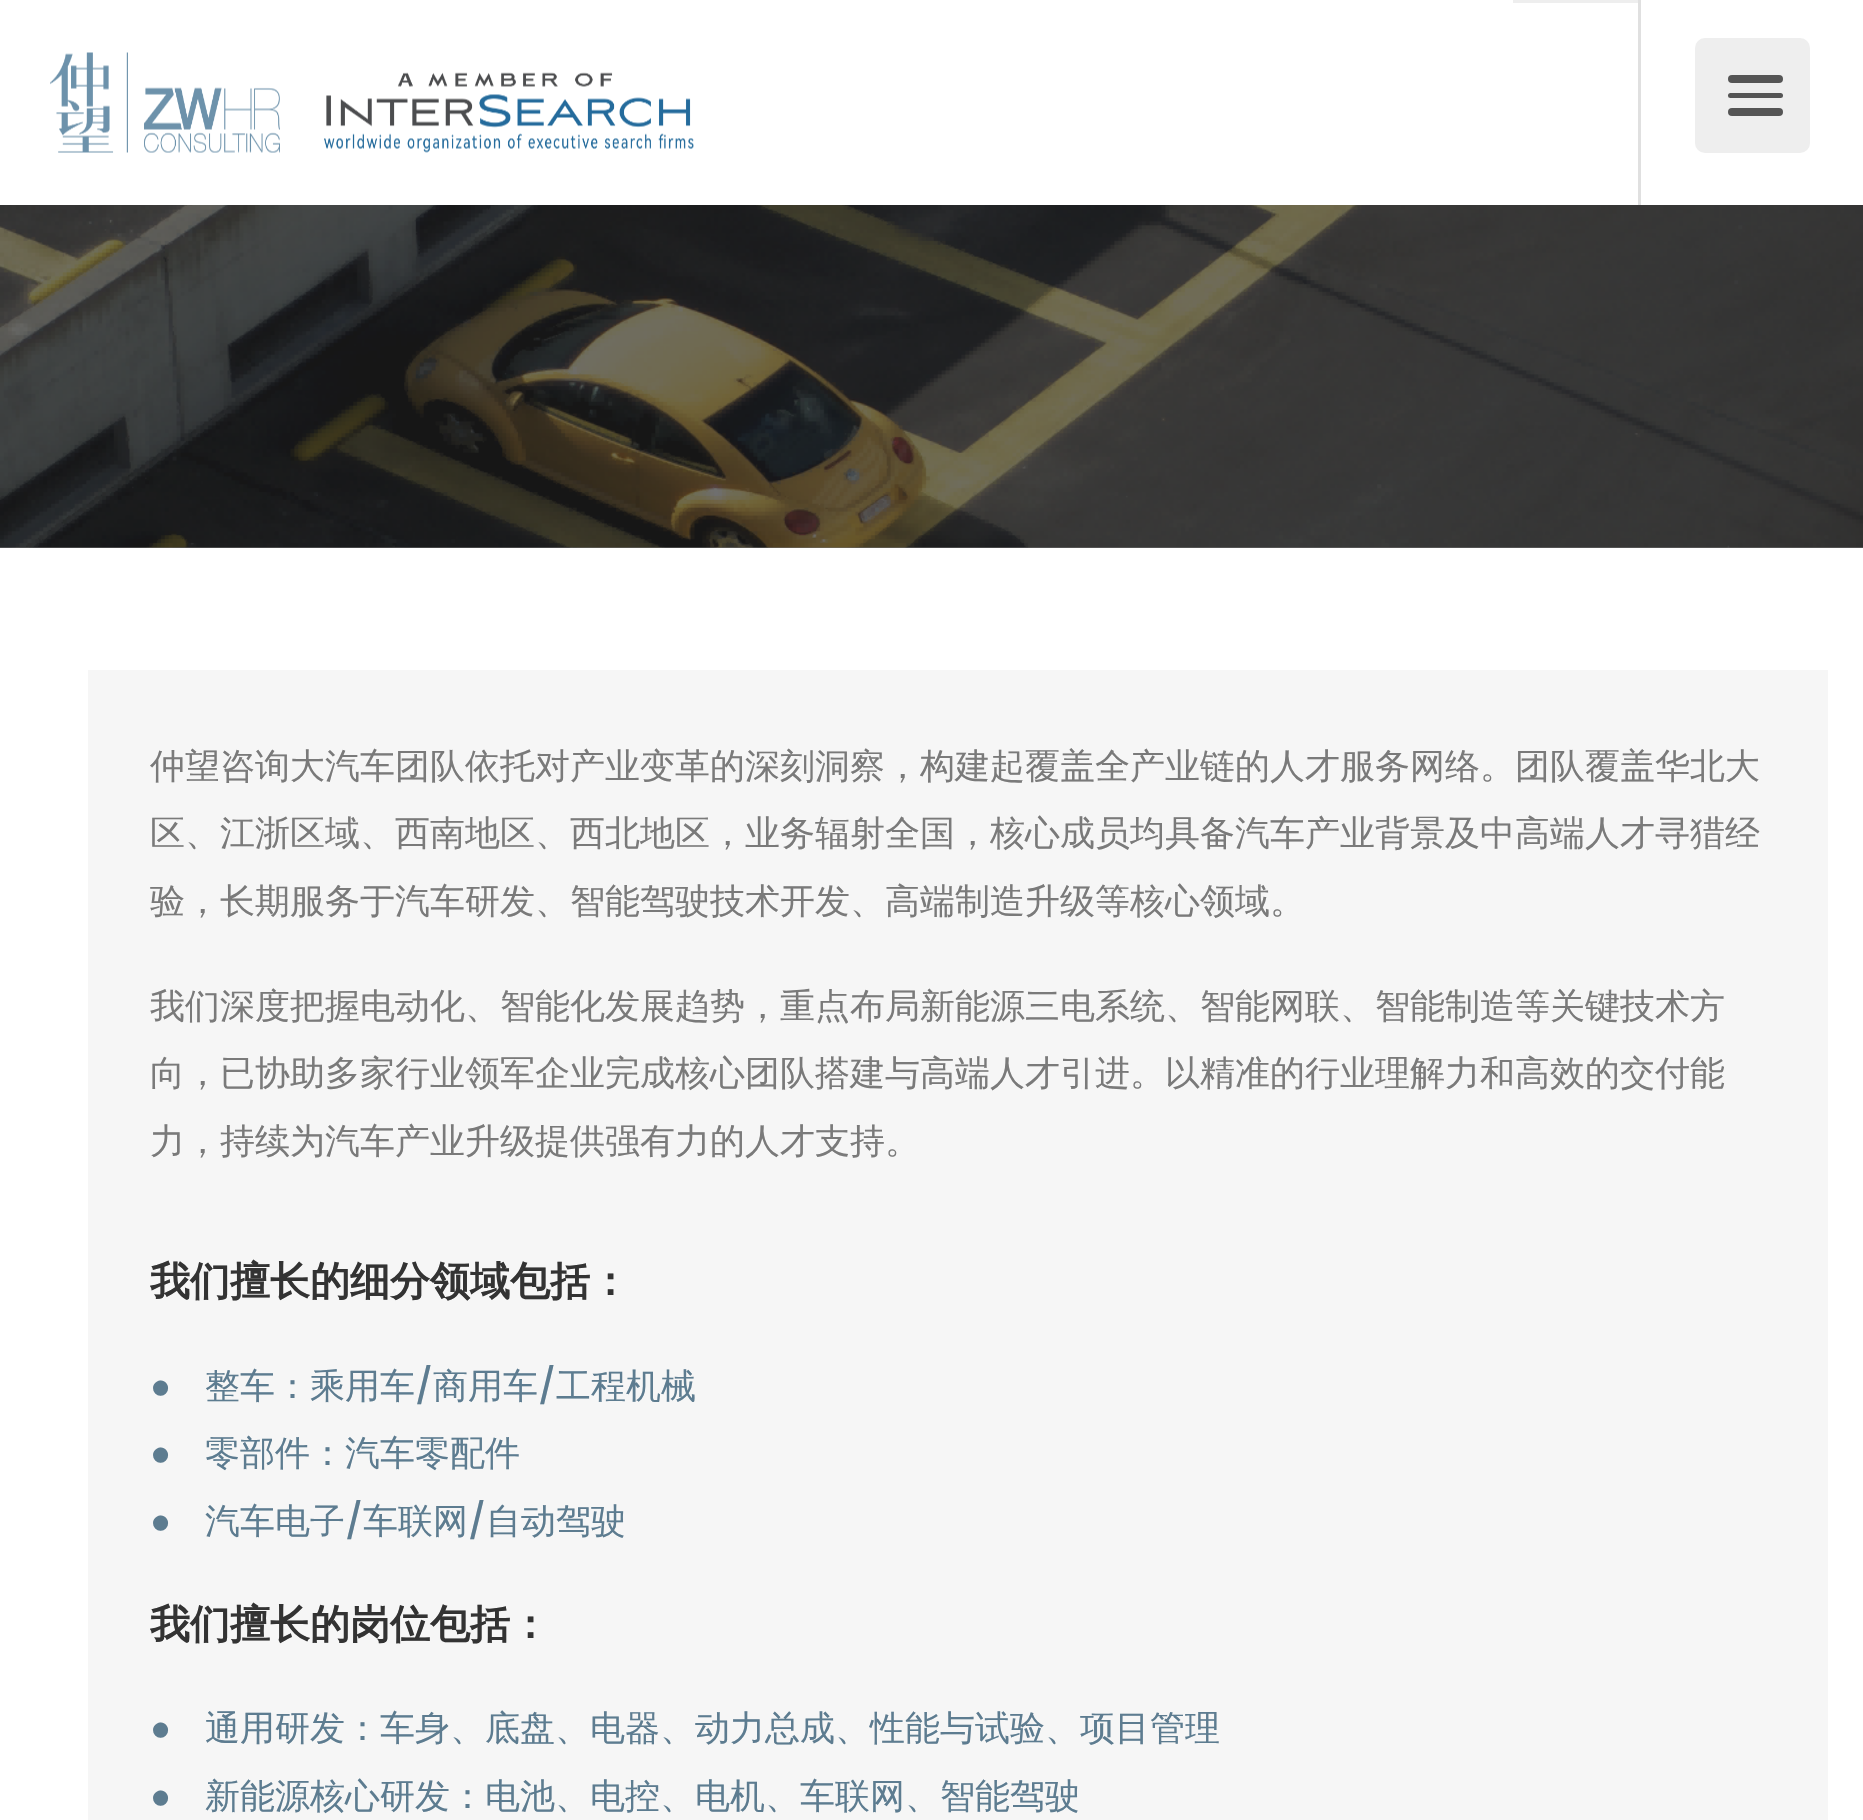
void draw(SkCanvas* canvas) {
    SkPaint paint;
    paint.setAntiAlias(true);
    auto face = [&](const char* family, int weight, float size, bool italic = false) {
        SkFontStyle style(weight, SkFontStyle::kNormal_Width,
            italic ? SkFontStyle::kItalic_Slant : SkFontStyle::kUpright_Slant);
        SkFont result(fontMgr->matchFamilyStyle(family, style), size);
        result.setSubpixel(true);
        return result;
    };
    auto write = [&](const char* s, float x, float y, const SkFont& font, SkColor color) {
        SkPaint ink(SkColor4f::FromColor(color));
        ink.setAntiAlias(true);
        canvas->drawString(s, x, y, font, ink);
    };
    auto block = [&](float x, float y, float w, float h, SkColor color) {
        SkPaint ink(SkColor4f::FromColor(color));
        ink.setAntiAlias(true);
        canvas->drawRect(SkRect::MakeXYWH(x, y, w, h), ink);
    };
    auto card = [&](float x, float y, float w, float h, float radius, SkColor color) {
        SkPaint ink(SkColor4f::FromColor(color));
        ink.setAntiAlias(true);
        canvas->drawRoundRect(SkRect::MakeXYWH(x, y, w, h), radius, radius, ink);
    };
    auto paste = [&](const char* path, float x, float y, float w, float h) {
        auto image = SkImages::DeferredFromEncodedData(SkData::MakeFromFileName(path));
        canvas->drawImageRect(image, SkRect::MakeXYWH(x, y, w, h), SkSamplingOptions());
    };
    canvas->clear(SK_ColorWHITE);
    block(0, 547, 1863, 1, SkColorSetRGB(111, 111, 111));
    paste("pic1.png", 50, 52, 230, 101);
    paste("pic2.png", 324, 72, 370, 81);
    block(1513, 0, 127, 3, SkColorSetRGB(238, 238, 238));
    block(1638, 0, 3, 205, SkColorSetRGB(224, 224, 224));
    card(1695, 38, 115, 115, 10, SkColorSetRGB(238, 238, 238));
    card(1728, 108, 55, 8, 4, SkColorSetRGB(85, 85, 85));
    card(1728, 75, 55, 8, 4, SkColorSetRGB(85, 85, 85));
    card(1728, 93, 55, 5, 2.5f, SkColorSetRGB(85, 85, 85));
    paste("pic3.png", 0, 205, 1863, 343);
    block(88, 670, 1740, 1150, SkColorSetRGB(246, 246, 246));
    auto kFont1 = face("WenQuanYi Zen Hei", 500, 35);
    write("仲望咨询大汽车团队依托对产业变革的深刻洞察，构建起覆盖全产业链的人才服务网络。团队覆盖华北大", 150, 778, kFont1, SkColorSetRGB(122, 122, 122));
    write("区、江浙区域、西南地区、西北地区，业务辐射全国，核心成员均具备汽车产业背景及中高端人才寻猎经", 150, 845, kFont1, SkColorSetRGB(122, 122, 122));
    write("验，长期服务于汽车研发、智能驾驶技术开发、高端制造升级等核心领域。", 150, 913, kFont1, SkColorSetRGB(122, 122, 122));
    write("我们深度把握电动化、智能化发展趋势，重点布局新能源三电系统、智能网联、智能制造等关键技术方", 150, 1018, kFont1, SkColorSetRGB(122, 122, 122));
    write("向，已协助多家行业领军企业完成核心团队搭建与高端人才引进。以精准的行业理解力和高效的交付能", 150, 1085, kFont1, SkColorSetRGB(122, 122, 122));
    write("力，持续为汽车产业升级提供强有力的人才支持。", 150, 1153, kFont1, SkColorSetRGB(122, 122, 122));
    auto kFont2 = face("WenQuanYi Zen Hei", 700, 40);
    write("我们擅长的细分领域包括：", 150, 1295, kFont2, SkColorSetRGB(51, 51, 51));
    auto kFont3 = face("Liberation Sans", 400, 35);
    write("●", 150, 1398, kFont3, SkColorSetRGB(93, 124, 144));
    write("整车：乘用车", 205, 1398, kFont1, SkColorSetRGB(93, 124, 144));
    auto kFont4 = face("Poppins", 500, 35);
    write("/", 415, 1398, kFont4, SkColorSetRGB(93, 124, 144));
    write("商用车", 433, 1398, kFont1, SkColorSetRGB(93, 124, 144));
    write("/", 538, 1398, kFont4, SkColorSetRGB(93, 124, 144));
    write("工程机械", 556, 1398, kFont1, SkColorSetRGB(93, 124, 144));
    write("●", 150, 1465, kFont3, SkColorSetRGB(93, 124, 144));
    write("零部件：汽车零配件", 205, 1465, kFont1, SkColorSetRGB(93, 124, 144));
    write("●", 150, 1533, kFont3, SkColorSetRGB(93, 124, 144));
    write("汽车电子", 205, 1533, kFont1, SkColorSetRGB(93, 124, 144));
    write("/", 345, 1533, kFont4, SkColorSetRGB(93, 124, 144));
    write("车联网", 363, 1533, kFont1, SkColorSetRGB(93, 124, 144));
    write("/", 468, 1533, kFont4, SkColorSetRGB(93, 124, 144));
    write("自动驾驶", 486, 1533, kFont1, SkColorSetRGB(93, 124, 144));
    write("我们擅长的岗位包括：", 150, 1638, kFont2, SkColorSetRGB(51, 51, 51));
    write("●", 150, 1740, kFont3, SkColorSetRGB(93, 124, 144));
    write("通用研发：车身、底盘、电器、动力总成、性能与试验、项目管理", 205, 1740, kFont1, SkColorSetRGB(93, 124, 144));
    write("●", 150, 1808, kFont3, SkColorSetRGB(93, 124, 144));
    write("新能源核心研发：电池、电控、电机、车联网、智能驾驶", 205, 1808, kFont1, SkColorSetRGB(93, 124, 144));
}
